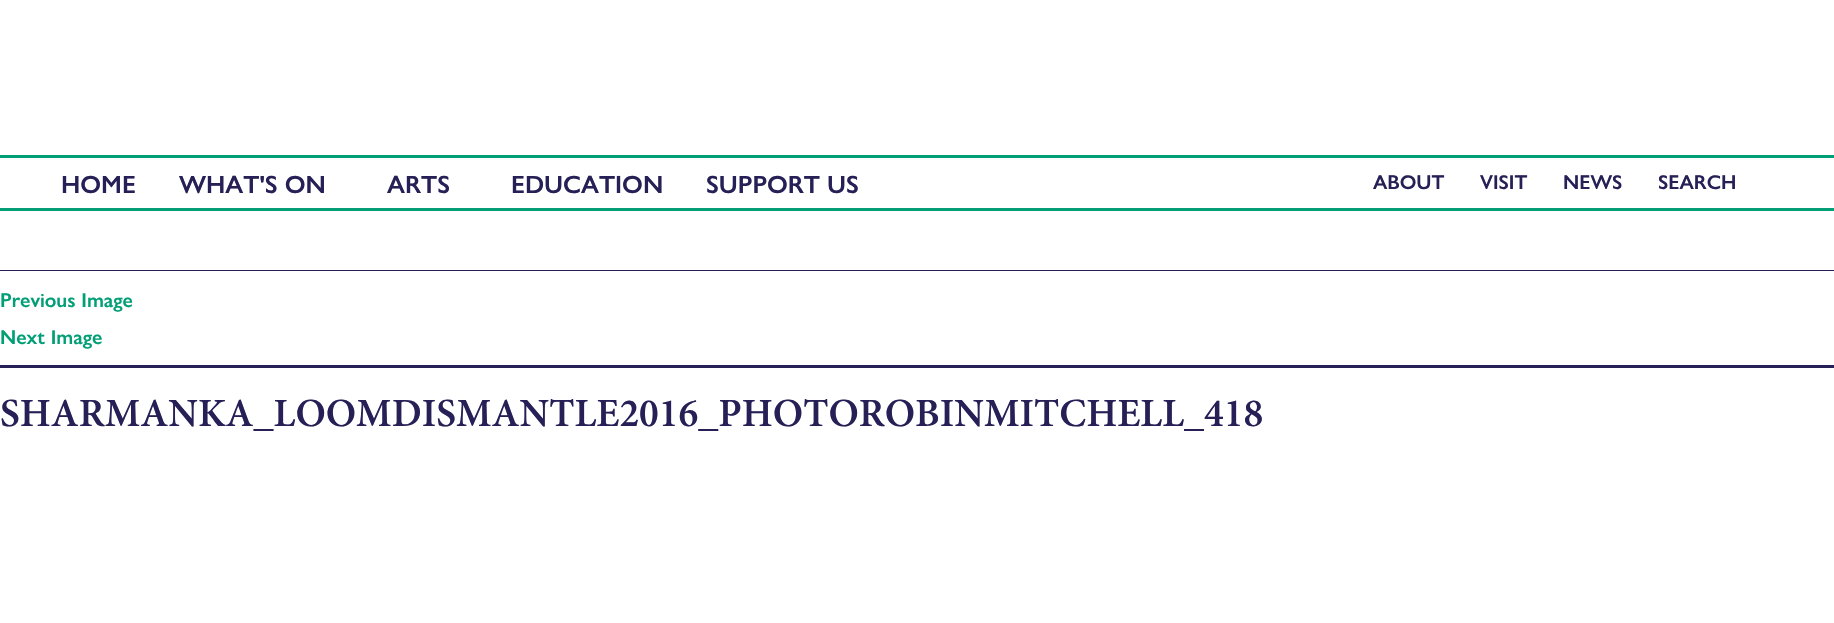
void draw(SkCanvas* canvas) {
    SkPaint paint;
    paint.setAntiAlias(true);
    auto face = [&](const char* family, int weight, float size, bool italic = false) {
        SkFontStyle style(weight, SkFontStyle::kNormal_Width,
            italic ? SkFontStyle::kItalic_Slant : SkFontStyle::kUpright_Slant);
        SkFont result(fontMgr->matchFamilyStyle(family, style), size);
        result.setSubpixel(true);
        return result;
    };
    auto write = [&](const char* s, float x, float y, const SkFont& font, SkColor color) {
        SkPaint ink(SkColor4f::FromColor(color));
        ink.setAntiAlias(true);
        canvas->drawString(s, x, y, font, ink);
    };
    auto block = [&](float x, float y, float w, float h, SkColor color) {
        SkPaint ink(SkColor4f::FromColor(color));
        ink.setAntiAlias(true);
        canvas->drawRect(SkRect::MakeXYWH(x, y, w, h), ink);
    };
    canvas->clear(SK_ColorWHITE);
    block(0, 155, 1834, 3, SkColorSetRGB(2, 159, 119));
    block(0, 208, 1834, 3, SkColorSetRGB(2, 159, 119));
    auto kFont1 = face("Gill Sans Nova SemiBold", 600, 25);
    write("HOME", 61, 193, kFont1, SkColorSetRGB(38, 32, 87));
    write("WHAT'S ON", 179, 193, kFont1, SkColorSetRGB(38, 32, 87));
    write("ARTS", 387, 193, kFont1, SkColorSetRGB(38, 32, 87));
    write("EDUCATION", 511, 193, kFont1, SkColorSetRGB(38, 32, 87));
    write("SUPPORT US", 706, 193, kFont1, SkColorSetRGB(38, 32, 87));
    auto kFont2 = face("Gill Sans Nova SemiBold", 600, 20);
    write("ABOUT", 1373, 189, kFont2, SkColorSetRGB(38, 32, 87));
    write("VISIT", 1480, 189, kFont2, SkColorSetRGB(38, 32, 87));
    write("NEWS", 1563, 189, kFont2, SkColorSetRGB(38, 32, 87));
    write("SEARCH", 1658, 189, kFont2, SkColorSetRGB(38, 32, 87));
    block(0, 270, 1834, 1, SkColorSetRGB(38, 32, 87));
    block(0, 365, 1834, 3, SkColorSetRGB(38, 32, 87));
    write("Previous Image", 0, 307, kFont2, SkColorSetRGB(2, 159, 119));
    write("Next Image", 0, 344, kFont2, SkColorSetRGB(2, 159, 119));
    auto kFont3 = face("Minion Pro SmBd", 600, 40);
    write("SHARMANKA_LOOMDISMANTLE2016_PHOTOROBINMITCHELL_418", 0, 426, kFont3, SkColorSetRGB(38, 32, 87));
}
